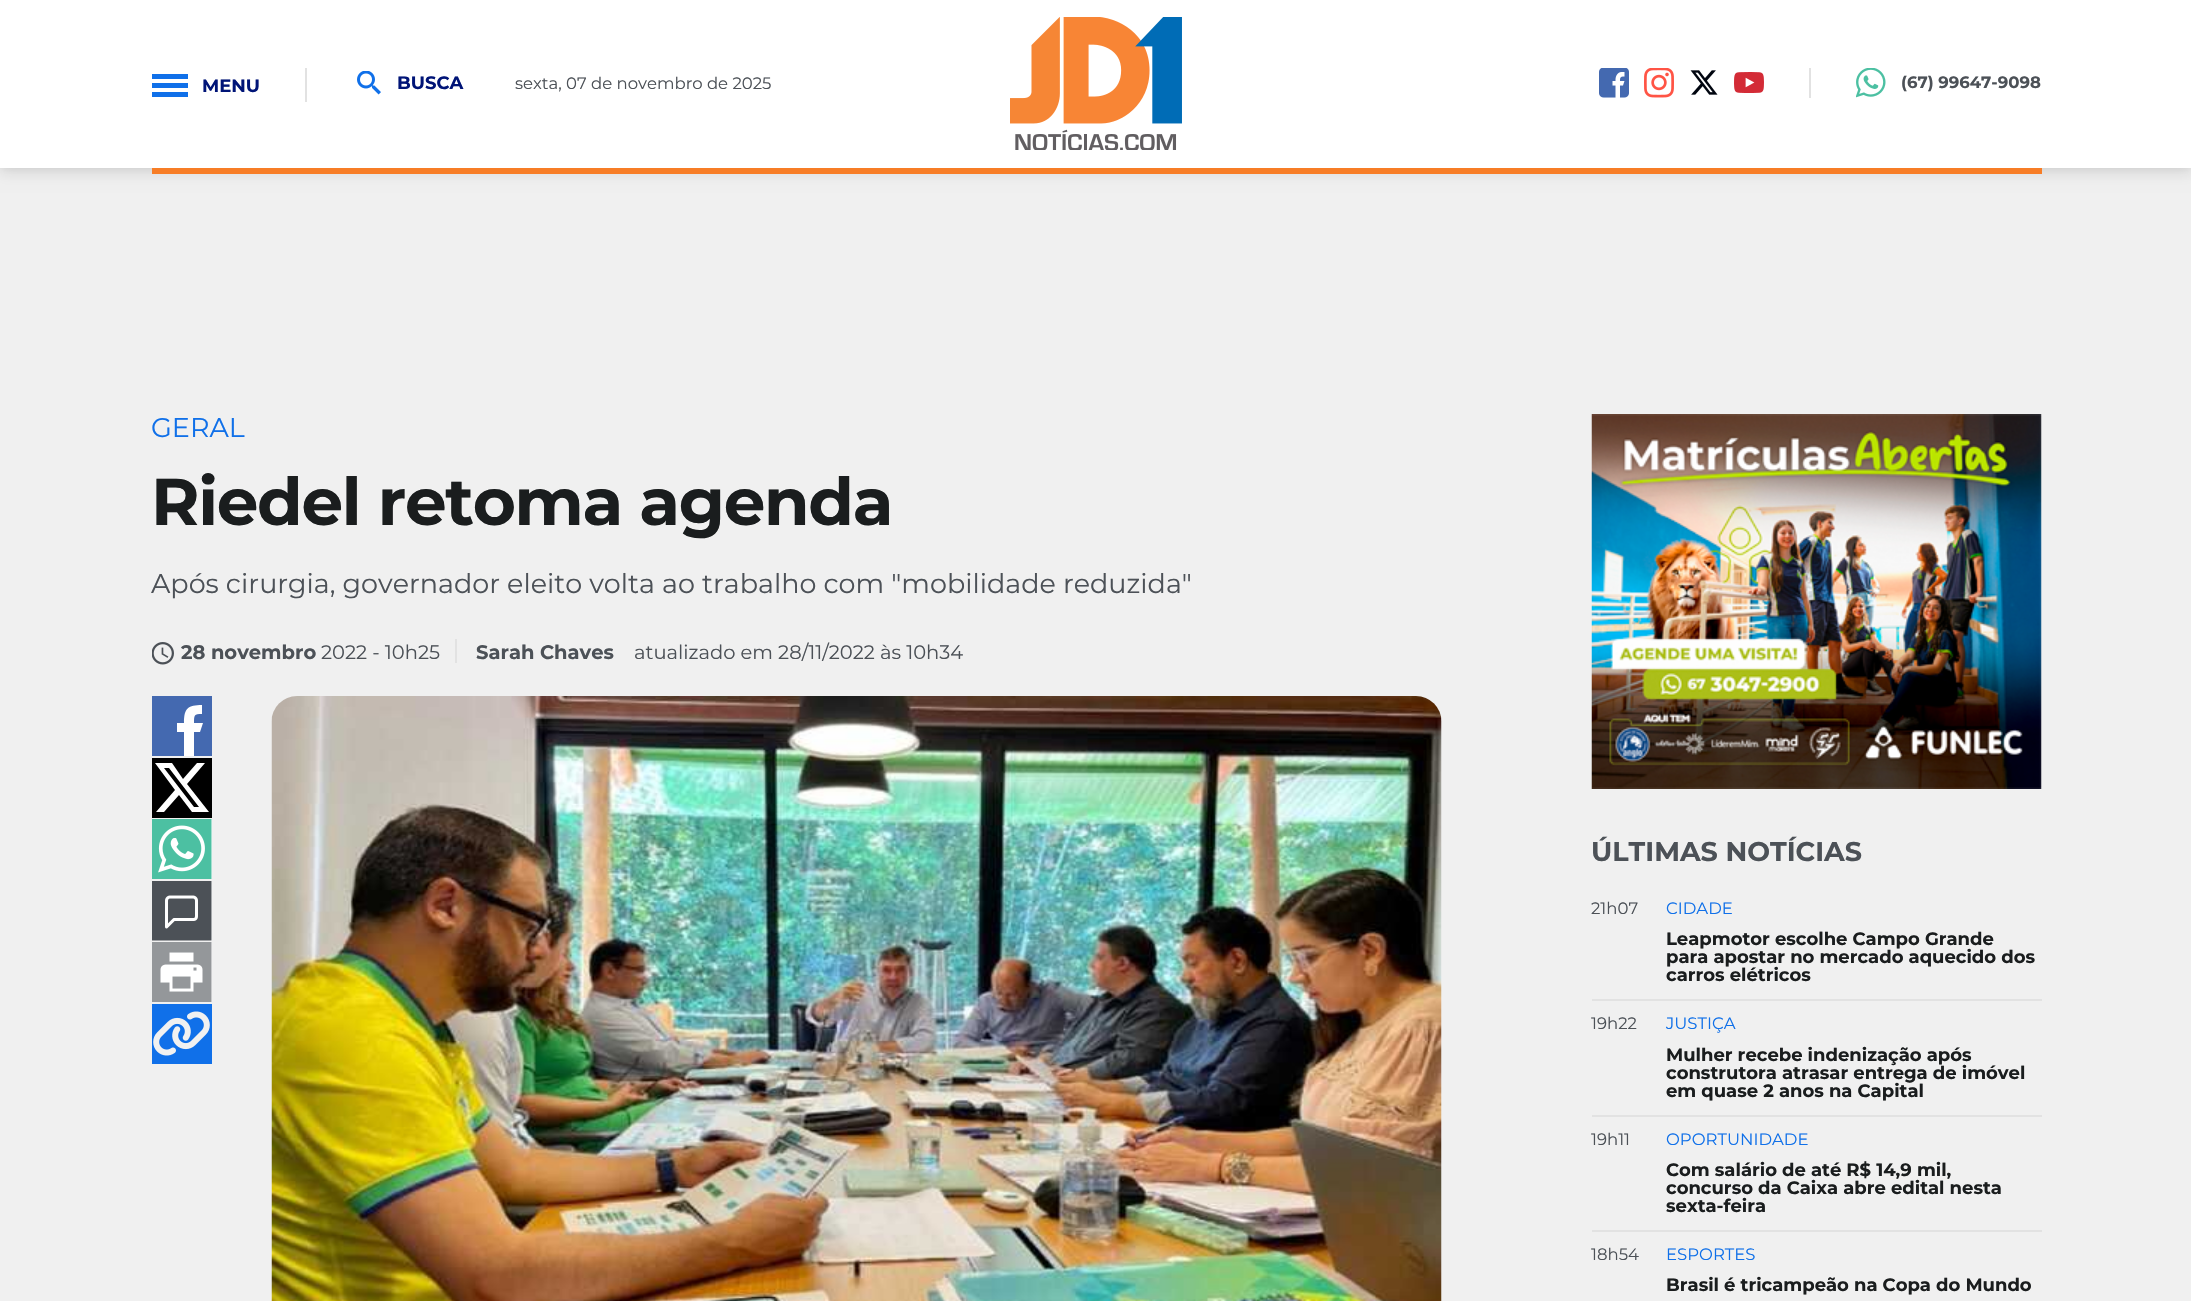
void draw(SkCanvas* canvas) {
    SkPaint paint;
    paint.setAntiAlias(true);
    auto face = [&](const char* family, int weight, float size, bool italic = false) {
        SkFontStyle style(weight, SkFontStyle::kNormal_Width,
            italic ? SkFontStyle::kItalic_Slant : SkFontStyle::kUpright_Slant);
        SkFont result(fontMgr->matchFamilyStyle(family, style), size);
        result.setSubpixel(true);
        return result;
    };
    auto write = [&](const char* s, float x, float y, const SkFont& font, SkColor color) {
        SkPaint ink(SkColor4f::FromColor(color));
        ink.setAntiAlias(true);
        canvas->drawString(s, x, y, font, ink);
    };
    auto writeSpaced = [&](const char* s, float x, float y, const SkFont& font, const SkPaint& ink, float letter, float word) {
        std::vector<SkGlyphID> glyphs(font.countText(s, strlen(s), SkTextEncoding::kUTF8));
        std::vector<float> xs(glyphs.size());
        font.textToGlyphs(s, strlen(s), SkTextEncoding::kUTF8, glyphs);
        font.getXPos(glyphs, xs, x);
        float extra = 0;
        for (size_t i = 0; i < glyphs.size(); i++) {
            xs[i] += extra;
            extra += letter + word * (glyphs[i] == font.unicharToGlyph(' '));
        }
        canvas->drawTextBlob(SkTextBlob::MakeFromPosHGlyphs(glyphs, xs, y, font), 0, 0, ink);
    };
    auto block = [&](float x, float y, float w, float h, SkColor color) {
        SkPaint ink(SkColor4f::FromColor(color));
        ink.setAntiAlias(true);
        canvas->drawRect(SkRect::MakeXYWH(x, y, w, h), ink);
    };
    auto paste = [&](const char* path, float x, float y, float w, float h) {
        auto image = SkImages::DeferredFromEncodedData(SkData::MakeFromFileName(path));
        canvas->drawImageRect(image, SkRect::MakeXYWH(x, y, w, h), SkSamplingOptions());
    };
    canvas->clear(SkColorSetRGB(240, 240, 240));
    paint.setColor(SkColorSetARGB(33, 0, 0, 0));
    paint.setMaskFilter(SkMaskFilter::MakeBlur(kNormal_SkBlurStyle, 7.5f));
    canvas->drawRect(SkRect::MakeXYWH(0, 3, 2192, 168), paint);
    paint.setMaskFilter(nullptr);
    paint.setColor(SkColorSetARGB(13, 0, 0, 0));
    paint.setMaskFilter(SkMaskFilter::MakeBlur(kNormal_SkBlurStyle, 4));
    canvas->drawRect(SkRect::MakeXYWH(0, 0, 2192, 168), paint);
    paint.setMaskFilter(nullptr);
    block(0, 0, 2191, 168, SK_ColorWHITE);
    block(305, 68, 2, 34, SkColorSetRGB(226, 226, 226));
    block(152, 83, 36, 5, SkColorSetRGB(16, 112, 233));
    block(152, 74, 36, 5, SkColorSetRGB(16, 112, 233));
    block(152, 92, 36, 5, SkColorSetRGB(16, 112, 233));
    auto kFont1 = face("Montserrat", 700, 18);
    write("MENU", 202, 92, kFont1, SkColorSetRGB(0, 20, 119));
    paste("pic1.png", 357, 71, 24, 24);
    write("BUSCA", 397, 89, kFont1, SkColorSetRGB(0, 20, 119));
    auto kFont2 = face("Montserrat", 400, 16.5f);
    write("sexta, 07 de novembro de 2025", 515, 89, kFont2, SkColorSetRGB(76, 81, 87));
    paste("pic2.png", 1010, 17, 172, 133);
    paste("pic3.png", 1599, 68, 30, 30);
    paste("pic4.png", 1644, 68, 30, 30);
    paste("pic5.png", 1690, 70, 28, 25);
    paste("pic6.png", 1734, 72, 30, 21);
    block(1809, 68, 2, 30, SkColorSetRGB(226, 226, 226));
    paste("pic7.png", 1856, 68, 30, 30);
    auto kFont3 = face("Montserrat", 700, 16.5f);
    write("(67) 99647-9098", 1901, 88, kFont3, SkColorSetRGB(76, 81, 87));
    block(152, 168, 1890, 6, SkColorSetRGB(247, 125, 38));
    auto kFont4 = face("Montserrat", 400, 27);
    write("GERAL", 151, 437, kFont4, SkColorSetRGB(16, 112, 233));
    auto kFont5 = face("Montserrat", 700, 66);
    paint.setColor(SkColorSetRGB(26, 29, 30));
    writeSpaced("Riedel retoma agenda", 151, 525, kFont5, paint, -1.3f, 0);
    write("Após cirurgia, governador eleito volta ao trabalho com \"mobilidade reduzida\"", 151, 593, kFont4, SkColorSetRGB(76, 81, 87));
    paste("pic8.png", 152, 642, 22, 23);
    auto kFont6 = face("Montserrat", 700, 19.5f);
    write("28 novembro", 181, 659, kFont6, SkColorSetRGB(76, 81, 87));
    auto kFont7 = face("Montserrat", 400, 19.5f);
    write("2022 - 10h25", 321, 659, kFont7, SkColorSetRGB(76, 81, 87));
    block(455, 639, 2, 24, SkColorSetRGB(226, 226, 226));
    write("Sarah Chaves", 476, 659, kFont6, SkColorSetRGB(76, 81, 87));
    write("atualizado em 28/11/2022 às 10h34", 634, 659, kFont7, SkColorSetRGB(76, 81, 87));
    block(177, 705, 26, 51, SK_ColorWHITE);
    paint.setColor(SkColorSetRGB(68, 105, 176));
    canvas->drawPath(SkPathBuilder(SkPathFillType::kEvenOdd).moveTo(152, 696).lineTo(152, 756).lineTo(184, 756).lineTo(184, 732).lineTo(177, 732).lineTo(177, 723).lineTo(184, 723).cubicTo(184, 708, 188, 705, 202, 705).lineTo(202, 714).cubicTo(194, 714, 194, 715, 194, 723).lineTo(203, 723).lineTo(200, 732).lineTo(194, 732).lineTo(194, 756).lineTo(212, 756).lineTo(212, 696).close().detach(), paint);
    block(152, 758, 60, 60, SK_ColorBLACK);
    paint.setColor(SK_ColorWHITE);
    canvas->drawPath(SkPathBuilder().moveTo(197, 763).lineTo(205, 763).lineTo(187, 784).lineTo(209, 812).lineTo(192, 812).lineTo(179, 795).lineTo(164, 812).lineTo(156, 812).lineTo(175, 790).lineTo(155, 763).lineTo(172, 763).lineTo(183, 779).close().moveTo(194, 807).lineTo(199, 807).lineTo(169, 768).lineTo(164, 768).close().detach(), paint);
    block(158, 819, 54, 60, SK_ColorWHITE);
    paste("pic9.png", 152, 819, 60, 60);
    block(152, 881, 60, 60, SK_ColorWHITE);
    paste("pic10.png", 152, 881, 60, 60);
    block(152, 942, 60, 60, SK_ColorWHITE);
    paste("pic11.png", 152, 942, 60, 60);
    block(152, 1004, 60, 60, SkColorSetRGB(16, 112, 233));
    paste("pic12.png", 153, 1011, 57, 45);
    paste("pic13.png", 271, 696, 1171, 605);
    paste("pic14.png", 1591, 414, 451, 375);
    auto kFont8 = face("Montserrat", 700, 27);
    write("ÚLTIMAS NOTÍCIAS", 1591, 861, kFont8, SkColorSetRGB(76, 81, 87));
    block(1592, 999, 450, 2, SkColorSetRGB(226, 226, 226));
    write("21h07", 1591, 914, kFont2, SkColorSetRGB(76, 81, 87));
    write("CIDADE", 1666, 914, kFont2, SkColorSetRGB(16, 112, 233));
    write("Leapmotor escolhe Campo Grande", 1666, 945, kFont1, SkColorSetRGB(26, 29, 30));
    write("para apostar no mercado aquecido dos", 1666, 963, kFont1, SkColorSetRGB(26, 29, 30));
    write("carros elétricos", 1666, 981, kFont1, SkColorSetRGB(26, 29, 30));
    block(1592, 1115, 450, 2, SkColorSetRGB(226, 226, 226));
    write("19h22", 1591, 1029, kFont2, SkColorSetRGB(76, 81, 87));
    write("JUSTIÇA", 1666, 1029, kFont2, SkColorSetRGB(16, 112, 233));
    write("Mulher recebe indenização após", 1666, 1061, kFont1, SkColorSetRGB(26, 29, 30));
    write("construtora atrasar entrega de imóvel", 1666, 1079, kFont1, SkColorSetRGB(26, 29, 30));
    write("em quase 2 anos na Capital", 1666, 1097, kFont1, SkColorSetRGB(26, 29, 30));
    block(1592, 1230, 450, 2, SkColorSetRGB(226, 226, 226));
    write("19h11", 1591, 1145, kFont2, SkColorSetRGB(76, 81, 87));
    write("OPORTUNIDADE", 1666, 1145, kFont2, SkColorSetRGB(16, 112, 233));
    write("Com salário de até R$ 14,9 mil,", 1666, 1176, kFont1, SkColorSetRGB(26, 29, 30));
    write("concurso da Caixa abre edital nesta", 1666, 1194, kFont1, SkColorSetRGB(26, 29, 30));
    write("sexta-feira", 1666, 1212, kFont1, SkColorSetRGB(26, 29, 30));
    write("18h54", 1591, 1260, kFont2, SkColorSetRGB(76, 81, 87));
    write("ESPORTES", 1666, 1260, kFont2, SkColorSetRGB(16, 112, 233));
    write("Brasil é tricampeão na Copa do Mundo", 1666, 1291, kFont1, SkColorSetRGB(26, 29, 30));
}
